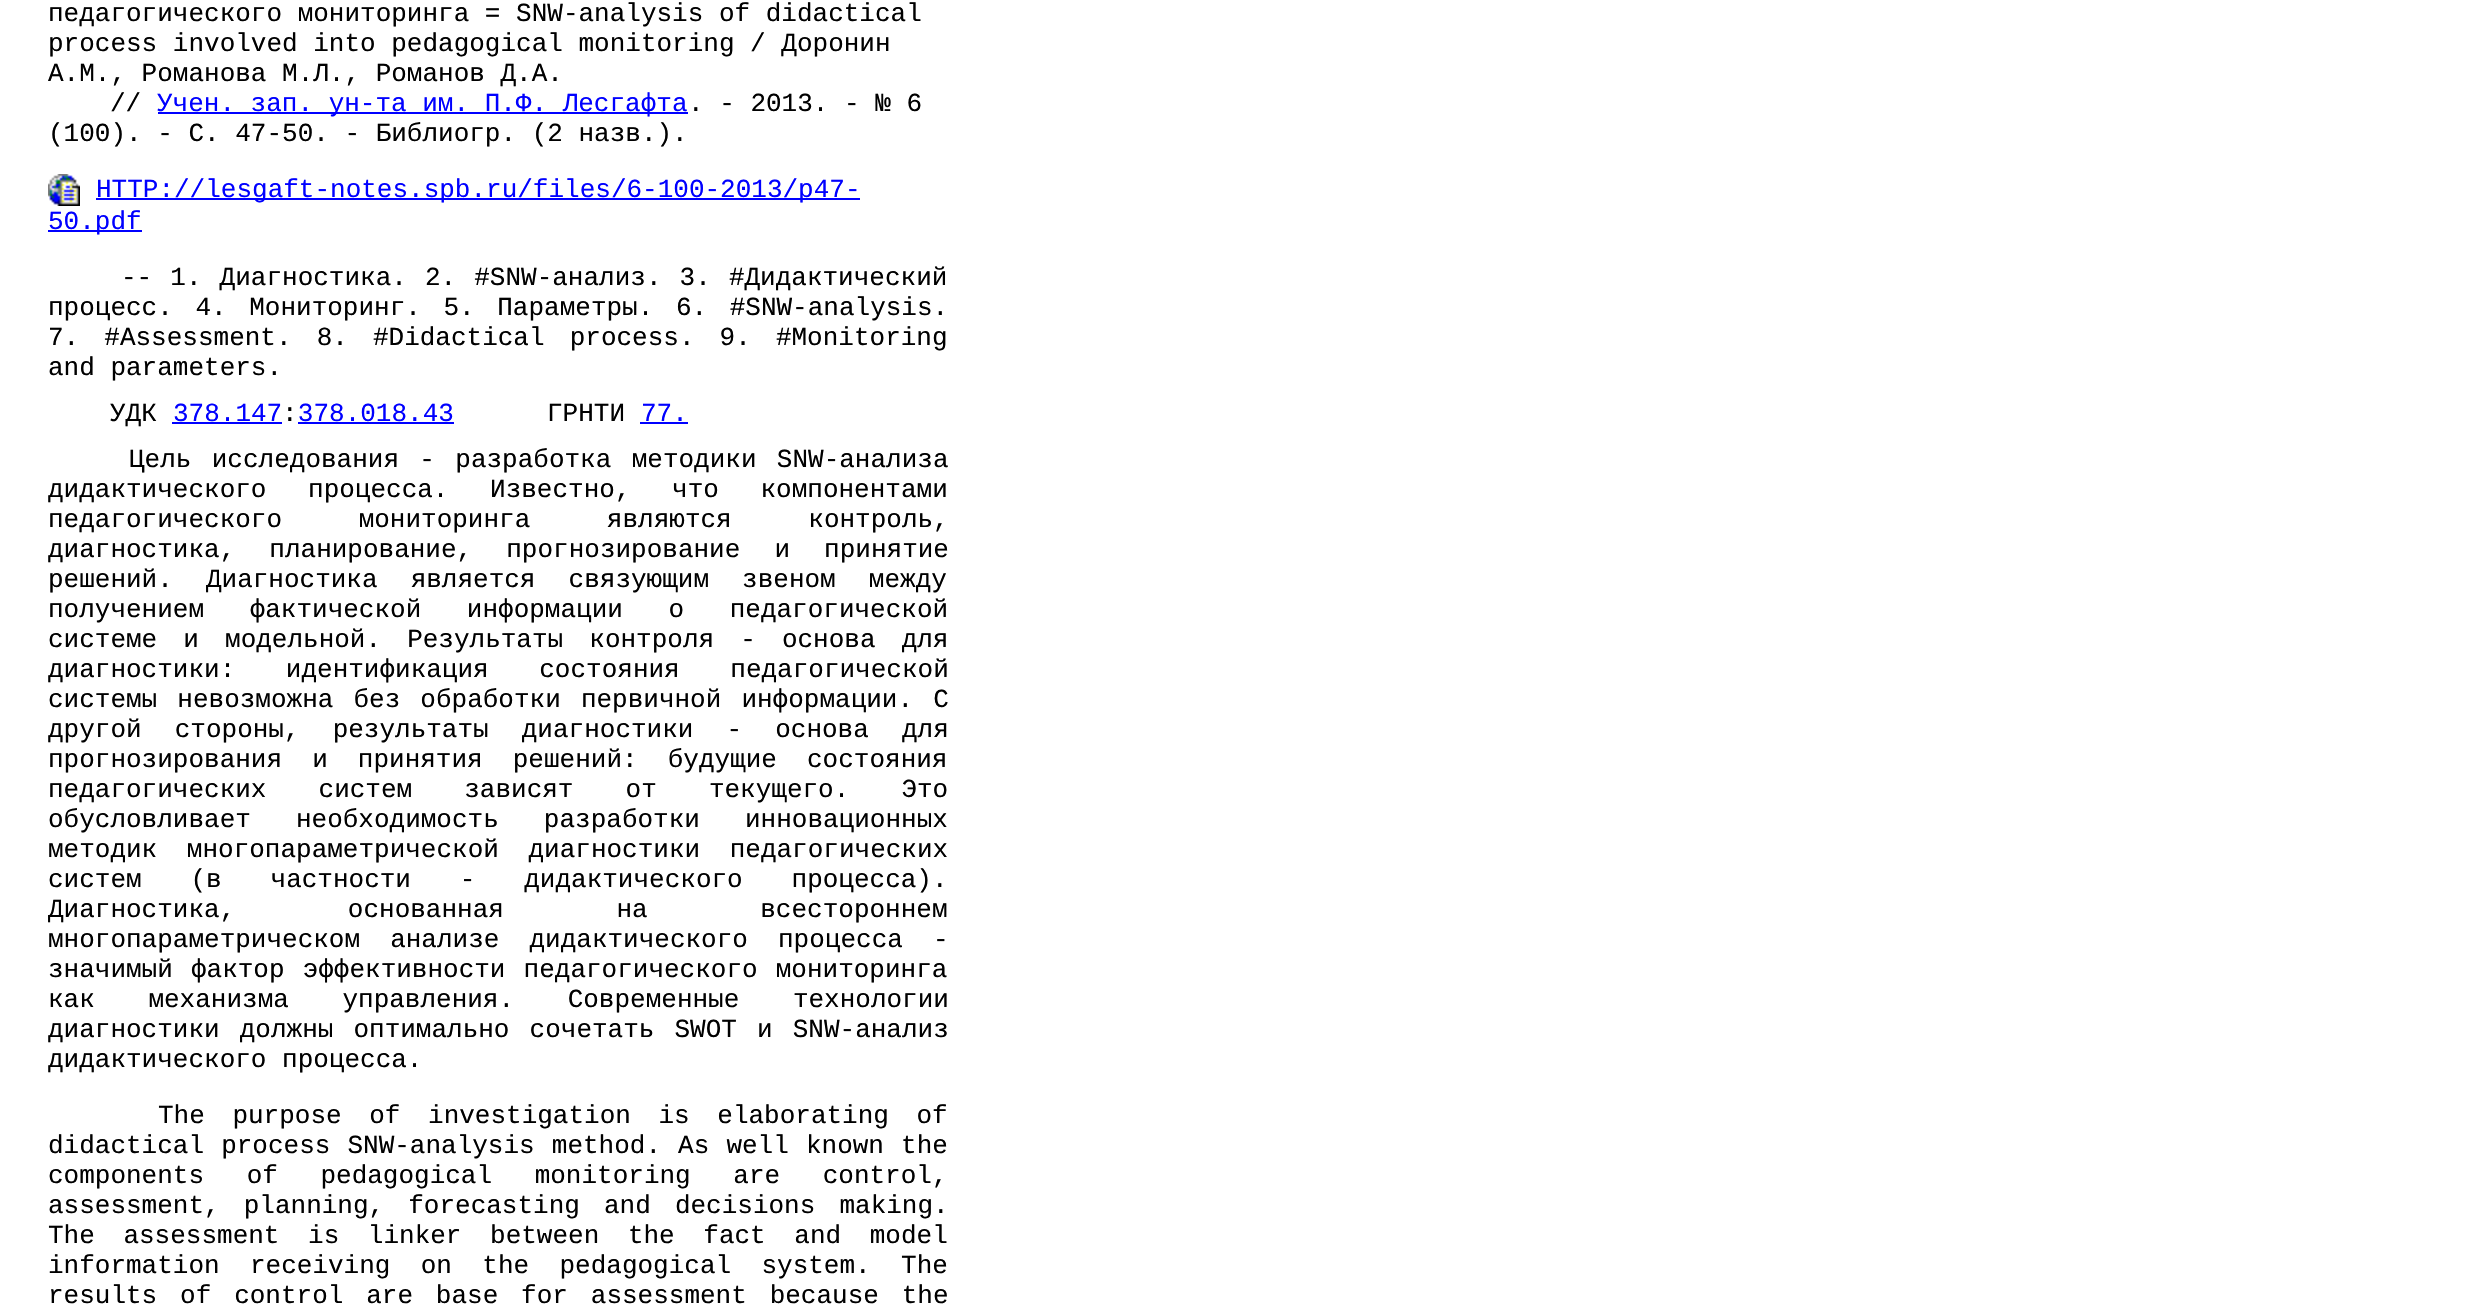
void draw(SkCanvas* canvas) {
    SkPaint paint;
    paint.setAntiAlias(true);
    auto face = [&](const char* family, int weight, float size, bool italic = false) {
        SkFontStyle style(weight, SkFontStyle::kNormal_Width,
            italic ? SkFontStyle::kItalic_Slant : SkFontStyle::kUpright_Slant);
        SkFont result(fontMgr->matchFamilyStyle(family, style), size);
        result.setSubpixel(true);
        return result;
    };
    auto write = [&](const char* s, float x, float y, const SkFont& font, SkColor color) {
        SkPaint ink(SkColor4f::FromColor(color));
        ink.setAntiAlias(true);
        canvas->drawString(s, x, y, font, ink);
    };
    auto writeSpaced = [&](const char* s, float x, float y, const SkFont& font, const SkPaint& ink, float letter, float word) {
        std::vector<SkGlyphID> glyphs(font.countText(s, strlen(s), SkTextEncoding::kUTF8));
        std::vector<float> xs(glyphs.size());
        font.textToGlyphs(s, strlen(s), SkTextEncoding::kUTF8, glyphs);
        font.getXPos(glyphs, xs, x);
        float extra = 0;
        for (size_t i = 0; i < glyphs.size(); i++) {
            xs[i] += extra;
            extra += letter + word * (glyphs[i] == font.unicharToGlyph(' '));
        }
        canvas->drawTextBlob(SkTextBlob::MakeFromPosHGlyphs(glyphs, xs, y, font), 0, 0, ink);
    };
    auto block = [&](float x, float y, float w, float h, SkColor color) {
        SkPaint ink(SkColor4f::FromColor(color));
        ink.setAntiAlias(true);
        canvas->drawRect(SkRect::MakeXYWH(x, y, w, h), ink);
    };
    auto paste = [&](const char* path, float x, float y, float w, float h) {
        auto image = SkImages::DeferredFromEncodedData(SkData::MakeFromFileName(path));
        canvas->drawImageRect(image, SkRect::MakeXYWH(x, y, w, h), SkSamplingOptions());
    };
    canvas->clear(SK_ColorWHITE);
    auto kFont1 = face("Liberation Mono", 400, 26);
    write("педагогического мониторинга = SNW-analysis of didactical", 48, 21, kFont1, SK_ColorBLACK);
    write("process involved into pedagogical monitoring / Доронин", 48, 51, kFont1, SK_ColorBLACK);
    write("А.М., Романова М.Л., Романов Д.А.", 48, 81, kFont1, SK_ColorBLACK);
    write("//", 110, 111, kFont1, SK_ColorBLACK);
    block(158, 112, 530, 2, SkColorSetRGB(0, 0, 255));
    write("Учен. зап. ун-та им. П.Ф. Лесгафта", 157, 111, kFont1, SkColorSetRGB(0, 0, 255));
    write(". - 2013. - № 6", 688, 111, kFont1, SK_ColorBLACK);
    write("(100). - С. 47-50. - Библиогр. (2 назв.).", 48, 141, kFont1, SK_ColorBLACK);
    paste("pic1.png", 48, 174, 32, 32);
    block(96, 198, 764, 2, SkColorSetRGB(0, 0, 255));
    write("HTTP://lesgaft-notes.spb.ru/files/6-100-2013/p47-", 96, 197, kFont1, SkColorSetRGB(0, 0, 255));
    block(48, 230, 94, 2, SkColorSetRGB(0, 0, 255));
    write("50.pdf", 48, 229, kFont1, SkColorSetRGB(0, 0, 255));
    paint.setColor(SK_ColorBLACK);
    writeSpaced("-- 1. Диагностика. 2. #SNW-анализ. 3. #Дидактический", 121, 285, kFont1, paint, 0, 2.5f);
    writeSpaced("процесс. 4. Мониторинг. 5. Параметры. 6. #SNW-analysis.", 48, 315, kFont1, paint, 0, 7);
    writeSpaced("7. #Assessment. 8. #Didactical process. 9. #Monitoring", 48, 345, kFont1, paint, 0, 9.5f);
    write("and parameters.", 48, 375, kFont1, SK_ColorBLACK);
    write("УДК", 110, 421, kFont1, SK_ColorBLACK);
    write("378.147 378.018.43", 173, 421, kFont1, SkColorSetRGB(0, 0, 255));
    block(172, 422, 110, 2, SkColorSetRGB(0, 0, 255));
    write("ГРНТИ", 547, 421, kFont1, SK_ColorBLACK);
    write("77.", 641, 421, kFont1, SkColorSetRGB(0, 0, 255));
    block(640, 422, 48, 2, SkColorSetRGB(0, 0, 255));
    write(":", 282, 421, kFont1, SK_ColorBLACK);
    block(298, 422, 156, 2, SkColorSetRGB(0, 0, 255));
    writeSpaced("Цель исследования - разработка методики SNW-анализа", 129, 467, kFont1, paint, 0, 4.75f);
    writeSpaced("дидактического процесса. Известно, что компонентами", 48, 497, kFont1, paint, 0, 26);
    writeSpaced("педагогического мониторинга являются контроль,", 48, 527, kFont1, paint, 0, 61);
    writeSpaced("диагностика, планирование, прогнозирование и принятие", 48, 557, kFont1, paint, 0, 18.5f);
    writeSpaced("решений. Диагностика является связующим звеном между", 48, 587, kFont1, paint, 0, 17.5f);
    writeSpaced("получением фактической информации о педагогической", 48, 617, kFont1, paint, 0, 30);
    writeSpaced("системе и модельной. Результаты контроля - основа для", 48, 647, kFont1, paint, 0, 10.5f);
    writeSpaced("диагностики: идентификация состояния педагогической", 48, 677, kFont1, paint, 0, 35);
    writeSpaced("системы невозможна без обработки первичной информации. С", 48, 707, kFont1, paint, 0, 4.5f);
    writeSpaced("другой стороны, результаты диагностики - основа для", 48, 737, kFont1, paint, 0, 17.5f);
    writeSpaced("прогнозирования и принятия решений: будущие состояния", 48, 767, kFont1, paint, 0, 14.5f);
    writeSpaced("педагогических систем зависят от текущего. Это", 48, 797, kFont1, paint, 0, 36.5f);
    writeSpaced("обусловливает необходимость разработки инновационных", 48, 827, kFont1, paint, 0, 29.5f);
    writeSpaced("методик многопараметрической диагностики педагогических", 48, 857, kFont1, paint, 0, 14);
    writeSpaced("систем (в частности - дидактического процесса).", 48, 887, kFont1, paint, 0, 33.25f);
    writeSpaced("Диагностика, основанная на всестороннем", 48, 917, kFont1, paint, 0, 97);
    writeSpaced("многопараметрическом анализе дидактического процесса -", 48, 947, kFont1, paint, 0, 14.5f);
    writeSpaced("значимый фактор эффективности педагогического мониторинга", 48, 977, kFont1, paint, 0, 2.5f);
    writeSpaced("как механизма управления. Современные технологии", 48, 1007, kFont1, paint, 0, 38);
    writeSpaced("диагностики должны оптимально сочетать SWOT и SNW-анализ", 48, 1037, kFont1, paint, 0, 4.5f);
    write("дидактического процесса.", 48, 1067, kFont1, SK_ColorBLACK);
    writeSpaced("The purpose of investigation is elaborating of", 158, 1123, kFont1, paint, 0, 12);
    writeSpaced("didactical process SNW-analysis method. As well known the", 48, 1153, kFont1, paint, 0, 1.5f);
    writeSpaced("components of pedagogical monitoring are control,", 48, 1183, kFont1, paint, 0, 27);
    writeSpaced("assessment, planning, forecasting and decisions making.", 48, 1213, kFont1, paint, 0, 8.5f);
    writeSpaced("The assessment is linker between the fact and model", 48, 1243, kFont1, paint, 0, 13);
    writeSpaced("information receiving on the pedagogical system. The", 48, 1273, kFont1, paint, 0, 14.75f);
    writeSpaced("results of control are base for assessment because the", 48, 1303, kFont1, paint, 0, 7.25f);
}
